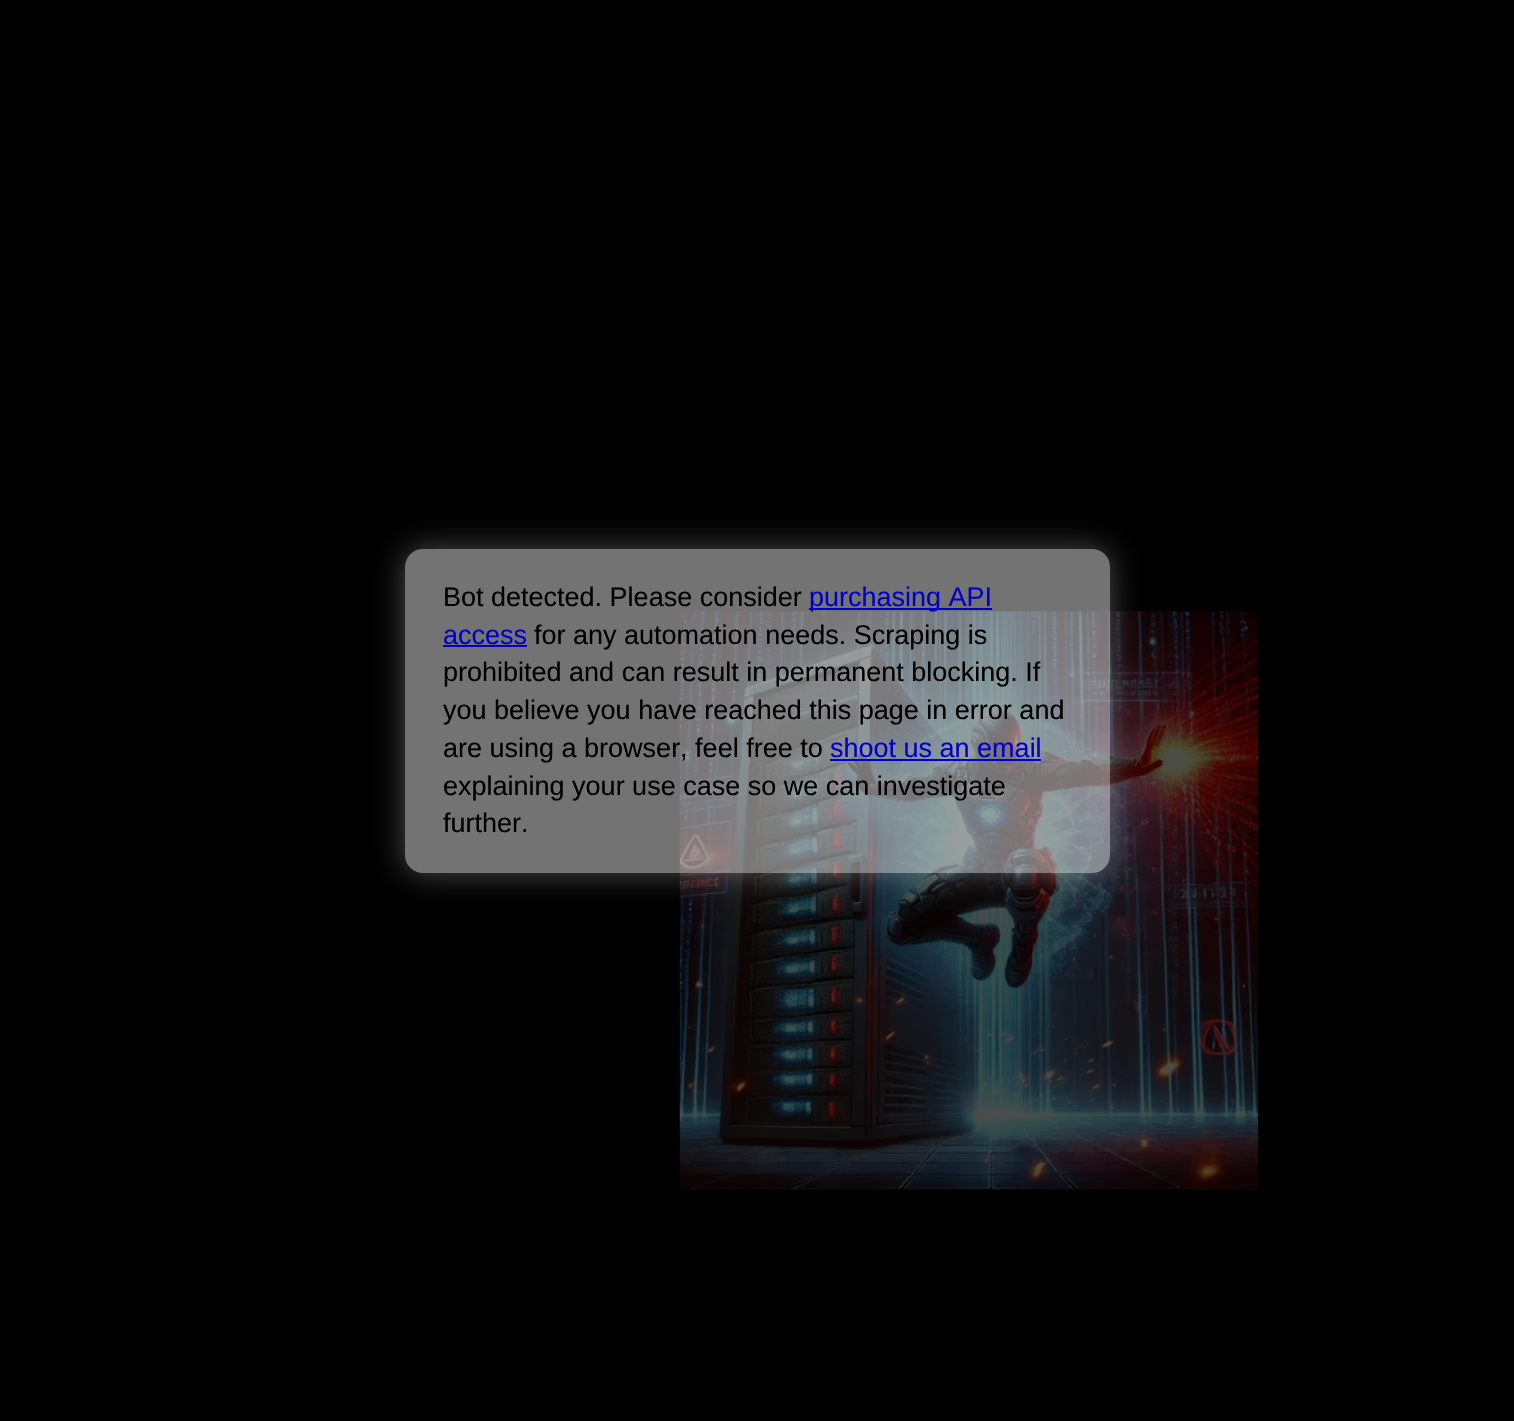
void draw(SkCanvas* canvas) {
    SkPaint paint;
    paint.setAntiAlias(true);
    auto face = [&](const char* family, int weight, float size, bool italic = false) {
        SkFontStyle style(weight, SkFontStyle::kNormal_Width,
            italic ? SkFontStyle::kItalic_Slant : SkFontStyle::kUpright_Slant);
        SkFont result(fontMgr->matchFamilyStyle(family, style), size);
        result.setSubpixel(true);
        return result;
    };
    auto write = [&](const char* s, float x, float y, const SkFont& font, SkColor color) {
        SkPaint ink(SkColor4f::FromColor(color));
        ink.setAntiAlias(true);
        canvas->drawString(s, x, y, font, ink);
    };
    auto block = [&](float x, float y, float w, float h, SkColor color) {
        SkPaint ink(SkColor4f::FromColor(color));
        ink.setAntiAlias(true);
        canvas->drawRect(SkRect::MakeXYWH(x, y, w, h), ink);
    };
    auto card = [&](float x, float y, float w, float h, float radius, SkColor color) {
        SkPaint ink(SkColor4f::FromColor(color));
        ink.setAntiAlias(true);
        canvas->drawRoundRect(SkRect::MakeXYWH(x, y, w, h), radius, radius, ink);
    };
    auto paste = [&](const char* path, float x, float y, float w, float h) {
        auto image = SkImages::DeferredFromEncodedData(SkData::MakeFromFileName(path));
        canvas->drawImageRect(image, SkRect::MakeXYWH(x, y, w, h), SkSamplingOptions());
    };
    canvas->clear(SK_ColorBLACK);
    paste("pic1.png", 679, 611, 580, 579);
    canvas->save();
    canvas->clipPath(SkPathBuilder(SkPathFillType::kEvenOdd).moveTo(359, 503).lineTo(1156, 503).lineTo(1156, 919).lineTo(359, 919).close().moveTo(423, 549).lineTo(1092, 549).cubicTo(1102, 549, 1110, 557, 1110, 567).lineTo(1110, 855).cubicTo(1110, 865, 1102, 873, 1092, 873).lineTo(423, 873).cubicTo(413, 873, 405, 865, 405, 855).lineTo(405, 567).cubicTo(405, 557, 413, 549, 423, 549).close().detach(), true);
    paint.setColor(SkColorSetARGB(77, 255, 255, 255));
    paint.setMaskFilter(SkMaskFilter::MakeBlur(kNormal_SkBlurStyle, 15));
    canvas->drawRoundRect(SkRect::MakeXYWH(405, 549, 705, 324), 18, 18, paint);
    paint.setMaskFilter(nullptr);
    canvas->restore();
    card(405, 549, 705, 324, 18, SkColorSetARGB(115, 255, 255, 255));
    auto kFont1 = face("Liberation Sans", 400, 27);
    write("Bot detected. Please consider", 443, 606, kFont1, SK_ColorBLACK);
    block(809, 608, 183, 2, SkColorSetRGB(0, 0, 204));
    write("purchasing API", 809, 606, kFont1, SkColorSetRGB(0, 0, 204));
    write("access", 443, 644, kFont1, SkColorSetRGB(0, 0, 204));
    block(443, 645, 84, 2, SkColorSetRGB(0, 0, 204));
    write("for any automation needs. Scraping is", 534, 644, kFont1, SK_ColorBLACK);
    write("prohibited and can result in permanent blocking. If", 443, 681, kFont1, SK_ColorBLACK);
    write("you believe you have reached this page in error and", 443, 719, kFont1, SK_ColorBLACK);
    write("are using a browser, feel free to", 443, 757, kFont1, SK_ColorBLACK);
    write("shoot us an email", 830, 757, kFont1, SkColorSetRGB(0, 0, 204));
    block(830, 759, 211, 2, SkColorSetRGB(0, 0, 204));
    write("explaining your use case so we can investigate", 443, 795, kFont1, SK_ColorBLACK);
    write("further.", 443, 832, kFont1, SK_ColorBLACK);
}
